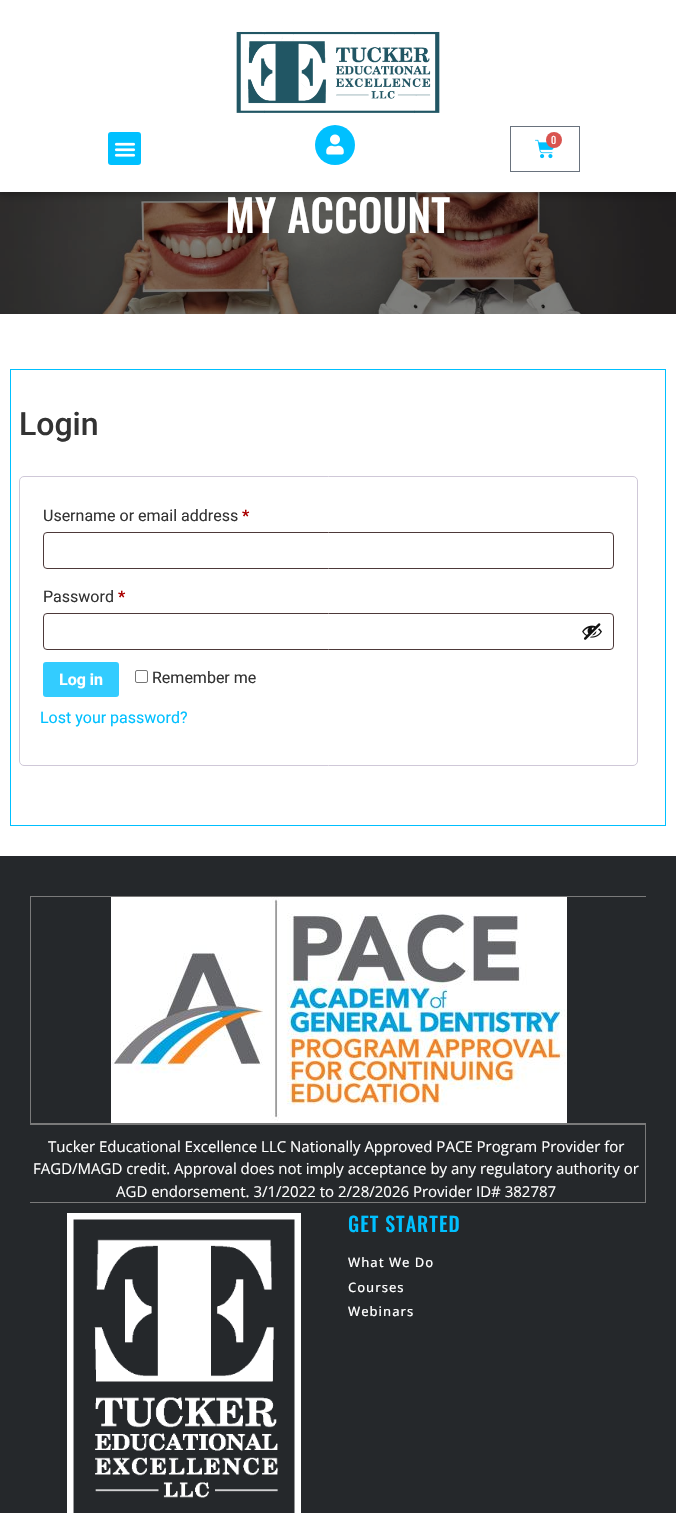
void draw(SkCanvas* canvas) {
    SkPaint paint;
    paint.setAntiAlias(true);
    auto face = [&](const char* family, int weight, float size, bool italic = false) {
        SkFontStyle style(weight, SkFontStyle::kNormal_Width,
            italic ? SkFontStyle::kItalic_Slant : SkFontStyle::kUpright_Slant);
        SkFont result(fontMgr->matchFamilyStyle(family, style), size);
        result.setSubpixel(true);
        return result;
    };
    auto write = [&](const char* s, float x, float y, const SkFont& font, SkColor color) {
        SkPaint ink(SkColor4f::FromColor(color));
        ink.setAntiAlias(true);
        canvas->drawString(s, x, y, font, ink);
    };
    auto writeSpaced = [&](const char* s, float x, float y, const SkFont& font, const SkPaint& ink, float letter, float word) {
        std::vector<SkGlyphID> glyphs(font.countText(s, strlen(s), SkTextEncoding::kUTF8));
        std::vector<float> xs(glyphs.size());
        font.textToGlyphs(s, strlen(s), SkTextEncoding::kUTF8, glyphs);
        font.getXPos(glyphs, xs, x);
        float extra = 0;
        for (size_t i = 0; i < glyphs.size(); i++) {
            xs[i] += extra;
            extra += letter + word * (glyphs[i] == font.unicharToGlyph(' '));
        }
        canvas->drawTextBlob(SkTextBlob::MakeFromPosHGlyphs(glyphs, xs, y, font), 0, 0, ink);
    };
    auto block = [&](float x, float y, float w, float h, SkColor color) {
        SkPaint ink(SkColor4f::FromColor(color));
        ink.setAntiAlias(true);
        canvas->drawRect(SkRect::MakeXYWH(x, y, w, h), ink);
    };
    auto card = [&](float x, float y, float w, float h, float radius, SkColor color) {
        SkPaint ink(SkColor4f::FromColor(color));
        ink.setAntiAlias(true);
        canvas->drawRoundRect(SkRect::MakeXYWH(x, y, w, h), radius, radius, ink);
    };
    auto paste = [&](const char* path, float x, float y, float w, float h) {
        auto image = SkImages::DeferredFromEncodedData(SkData::MakeFromFileName(path));
        canvas->drawImageRect(image, SkRect::MakeXYWH(x, y, w, h), SkSamplingOptions());
    };
    canvas->clear(SK_ColorWHITE);
    paste("pic5.png", 0, 192, 676, 122);
    paint.setColor(SkColorSetARGB(128, 0, 0, 0));
    paint.setMaskFilter(SkMaskFilter::MakeBlur(kNormal_SkBlurStyle, 5));
    canvas->drawRect(SkRect::MakeXYWH(0, 0, 676, 192), paint);
    paint.setMaskFilter(nullptr);
    block(0, 0, 676, 192, SK_ColorWHITE);
    paste("pic1.png", 236, 31, 204, 82);
    card(108, 132, 33, 33, 3, SkColorSetRGB(0, 192, 255));
    paste("pic2.png", 114, 142, 22, 15);
    paint.setColor(SkColorSetRGB(0, 192, 255));
    canvas->drawCircle(335, 145, 20, paint);
    paste("pic3.png", 326, 134, 18, 21);
    paint.setStyle(SkPaint::kStroke_Style);
    paint.setStrokeWidth(1);
    paint.setColor(SkColorSetRGB(105, 114, 125));
    canvas->drawRect(SkRect::MakeXYWH(510.5f, 126.5f, 69, 45), paint);
    paste("pic4.png", 535, 139, 19, 20);
    paint.setStyle(SkPaint::kFill_Style);
    paint.setColor(SkColorSetRGB(217, 83, 79));
    canvas->drawCircle(554, 140, 8, paint);
    auto kFont1 = face("Oswald", 400, 10);
    write("0", 551, 144, kFont1, SK_ColorWHITE);
    auto kFont2 = face("Oswald", 500, 44);
    write("MY ACCOUNT", 225, 233, kFont2, SK_ColorWHITE);
    paint.setStyle(SkPaint::kStroke_Style);
    paint.setColor(SkColorSetRGB(0, 192, 255));
    canvas->drawRect(SkRect::MakeXYWH(10.5f, 369.5f, 655, 456), paint);
    auto kFont3 = face("Roboto", 500, 32);
    write("Login", 19, 435, kFont3, SkColorSetRGB(51, 51, 51));
    paint.setColor(SkColorSetRGB(207, 200, 216));
    canvas->drawRoundRect(SkRect::MakeXYWH(19.5f, 476.5f, 618, 289), 4.5f, 4.5f, paint);
    auto kFont4 = face("Roboto", 400, 16);
    write("Username or email address", 43, 521, kFont4, SkColorSetRGB(51, 51, 51));
    auto kFont5 = face("Roboto", 700, 16);
    write("*", 242, 521, kFont5, SkColorSetRGB(170, 0, 0));
    paint.setColor(SkColorSetRGB(77, 57, 57));
    canvas->drawRoundRect(SkRect::MakeXYWH(43.5f, 532.5f, 570, 36), 3.5f, 3.5f, paint);
    write("Password", 43, 602, kFont4, SkColorSetRGB(51, 51, 51));
    write("*", 118, 602, kFont5, SkColorSetRGB(170, 0, 0));
    canvas->drawRoundRect(SkRect::MakeXYWH(43.5f, 613.5f, 570, 36), 3.5f, 3.5f, paint);
    paste("pic6.png", 582, 623, 20, 17);
    card(43, 662, 76, 35, 3, SkColorSetRGB(51, 204, 255));
    write("Log in", 59, 685, kFont5, SK_ColorWHITE);
    paint.setColor(SkColorSetRGB(118, 118, 118));
    canvas->drawRoundRect(SkRect::MakeXYWH(135.5f, 670.5f, 12, 12), 1.5f, 1.5f, paint);
    write("Remember me", 152, 683, kFont4, SkColorSetRGB(51, 51, 51));
    write("Lost your password?", 40, 723, kFont4, SkColorSetRGB(0, 192, 255));
    block(0, 856, 676, 657, SkColorSetRGB(37, 40, 43));
    block(30, 896, 616, 1, SkColorSetRGB(122, 122, 122));
    block(30, 1123, 616, 2, SkColorSetRGB(122, 122, 122));
    block(30, 896, 1, 228, SkColorSetRGB(122, 122, 122));
    paste("pic7.png", 111, 897, 456, 226);
    block(645, 1124, 1, 79, SkColorSetRGB(122, 122, 122));
    block(30, 1202, 616, 1, SkColorSetRGB(122, 122, 122));
    auto kFont6 = face("Open Sans", 400, 15);
    write("Tucker Educational Excellence LLC Nationally Approved PACE Program Provider for", 48, 1152, kFont6, SK_ColorWHITE);
    write("FAGD/MAGD credit. Approval does not imply acceptance by any regulatory authority or", 33, 1174, kFont6, SK_ColorWHITE);
    write("AGD endorsement. 3/1/2022 to 2/28/2026 Provider ID# 382787", 116, 1197, kFont6, SK_ColorWHITE);
    paste("pic8.png", 67, 1213, 234, 300);
    auto kFont7 = face("Oswald", 500, 20);
    paint.setStyle(SkPaint::kFill_Style);
    paint.setColor(SkColorSetRGB(0, 192, 255));
    writeSpaced("GET STARTED", 348, 1232, kFont7, paint, 1, 0);
    auto kFont8 = face("Open Sans", 500, 13);
    paint.setColor(SK_ColorWHITE);
    writeSpaced("What We Do", 348, 1267, kFont8, paint, 1, 0);
    writeSpaced("Courses", 348, 1292, kFont8, paint, 1, 0);
    writeSpaced("Webinars", 348, 1316, kFont8, paint, 1, 0);
}
